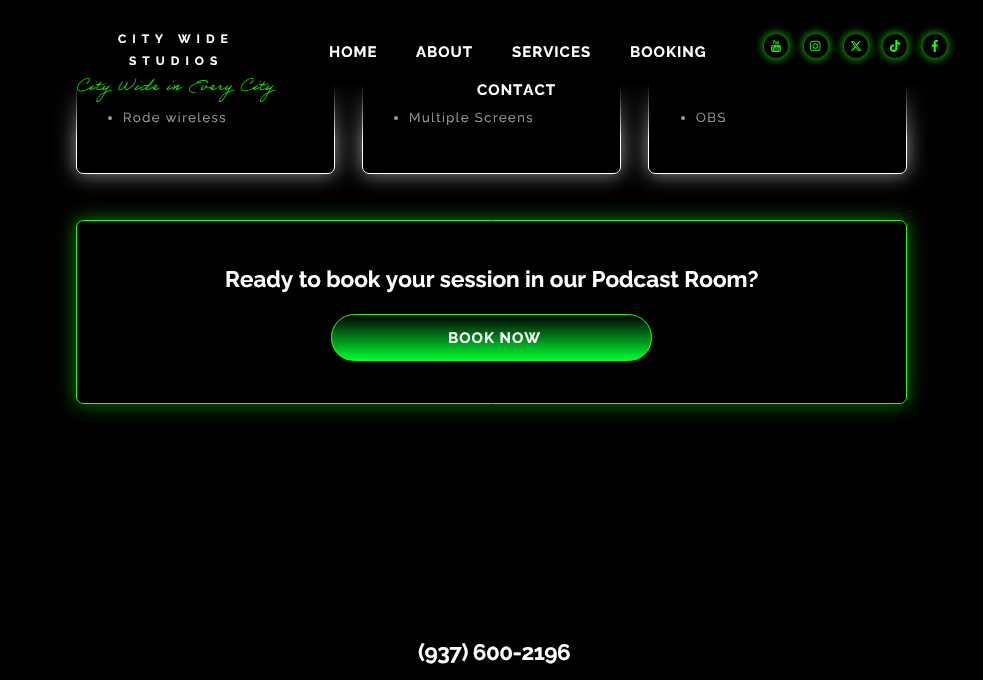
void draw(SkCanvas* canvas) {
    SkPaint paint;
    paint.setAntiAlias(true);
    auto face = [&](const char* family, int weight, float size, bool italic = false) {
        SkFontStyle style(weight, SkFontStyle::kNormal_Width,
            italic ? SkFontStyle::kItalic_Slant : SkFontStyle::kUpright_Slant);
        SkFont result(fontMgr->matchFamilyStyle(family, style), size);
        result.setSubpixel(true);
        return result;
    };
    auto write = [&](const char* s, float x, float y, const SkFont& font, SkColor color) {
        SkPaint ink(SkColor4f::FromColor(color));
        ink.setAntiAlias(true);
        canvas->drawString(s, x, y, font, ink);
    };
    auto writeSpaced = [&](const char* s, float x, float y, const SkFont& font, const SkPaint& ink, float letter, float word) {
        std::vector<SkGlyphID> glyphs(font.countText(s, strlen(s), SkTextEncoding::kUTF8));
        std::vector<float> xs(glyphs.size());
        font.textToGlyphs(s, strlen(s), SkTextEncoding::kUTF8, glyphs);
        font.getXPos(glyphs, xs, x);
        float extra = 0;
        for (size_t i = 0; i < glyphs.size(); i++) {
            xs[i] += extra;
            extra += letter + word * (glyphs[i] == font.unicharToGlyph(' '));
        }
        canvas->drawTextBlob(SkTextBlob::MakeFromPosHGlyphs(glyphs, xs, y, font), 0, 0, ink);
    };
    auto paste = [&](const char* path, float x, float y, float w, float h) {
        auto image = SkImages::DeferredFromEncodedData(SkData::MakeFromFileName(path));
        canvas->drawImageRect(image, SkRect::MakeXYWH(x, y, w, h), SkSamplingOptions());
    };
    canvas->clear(SK_ColorBLACK);
    canvas->save();
    canvas->clipPath(SkPathBuilder(SkPathFillType::kEvenOdd).moveTo(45, 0).lineTo(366, 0).lineTo(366, 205).lineTo(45, 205).close().moveTo(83, 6).lineTo(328, 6).cubicTo(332, 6, 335, 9, 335, 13).lineTo(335, 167).cubicTo(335, 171, 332, 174, 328, 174).lineTo(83, 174).cubicTo(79, 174, 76, 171, 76, 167).lineTo(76, 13).cubicTo(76, 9, 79, 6, 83, 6).close().detach(), true);
    paint.setColor(SkColorSetARGB(148, 255, 255, 255));
    paint.setMaskFilter(SkMaskFilter::MakeBlur(kNormal_SkBlurStyle, 10));
    canvas->drawRoundRect(SkRect::MakeXYWH(76, 6, 259, 168), 7, 7, paint);
    paint.setMaskFilter(nullptr);
    canvas->restore();
    paint.setStyle(SkPaint::kStroke_Style);
    paint.setStrokeWidth(1);
    paint.setColor(SK_ColorWHITE);
    canvas->drawRoundRect(SkRect::MakeXYWH(76.5f, 6.5f, 258, 167), 6.5f, 6.5f, paint);
    paint.setStyle(SkPaint::kFill_Style);
    canvas->drawCircle(110, 84, 2, paint);
    canvas->drawCircle(110, 118, 2, paint);
    auto kFont1 = face("Raleway", 400, 13);
    writeSpaced("Rode wireless", 123, 122, kFont1, paint, 1.5f, 0);
    canvas->save();
    canvas->clipPath(SkPathBuilder(SkPathFillType::kEvenOdd).moveTo(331, 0).lineTo(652, 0).lineTo(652, 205).lineTo(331, 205).close().moveTo(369, 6).lineTo(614, 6).cubicTo(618, 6, 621, 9, 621, 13).lineTo(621, 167).cubicTo(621, 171, 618, 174, 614, 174).lineTo(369, 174).cubicTo(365, 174, 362, 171, 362, 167).lineTo(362, 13).cubicTo(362, 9, 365, 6, 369, 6).close().detach(), true);
    paint.setColor(SkColorSetARGB(148, 255, 255, 255));
    paint.setMaskFilter(SkMaskFilter::MakeBlur(kNormal_SkBlurStyle, 10));
    canvas->drawRoundRect(SkRect::MakeXYWH(362, 6, 259, 168), 7, 7, paint);
    paint.setMaskFilter(nullptr);
    canvas->restore();
    paint.setStyle(SkPaint::kStroke_Style);
    paint.setColor(SK_ColorWHITE);
    canvas->drawRoundRect(SkRect::MakeXYWH(362.5f, 6.5f, 258, 167), 6.5f, 6.5f, paint);
    paint.setStyle(SkPaint::kFill_Style);
    canvas->drawCircle(396, 84, 2, paint);
    canvas->drawCircle(396, 118, 2, paint);
    writeSpaced("Multiple Screens", 409, 122, kFont1, paint, 1.5f, 0);
    canvas->save();
    canvas->clipPath(SkPathBuilder(SkPathFillType::kEvenOdd).moveTo(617, 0).lineTo(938, 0).lineTo(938, 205).lineTo(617, 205).close().moveTo(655, 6).lineTo(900, 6).cubicTo(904, 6, 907, 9, 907, 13).lineTo(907, 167).cubicTo(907, 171, 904, 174, 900, 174).lineTo(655, 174).cubicTo(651, 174, 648, 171, 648, 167).lineTo(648, 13).cubicTo(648, 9, 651, 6, 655, 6).close().detach(), true);
    paint.setColor(SkColorSetARGB(148, 255, 255, 255));
    paint.setMaskFilter(SkMaskFilter::MakeBlur(kNormal_SkBlurStyle, 10));
    canvas->drawRoundRect(SkRect::MakeXYWH(648, 6, 259, 168), 7, 7, paint);
    paint.setMaskFilter(nullptr);
    canvas->restore();
    paint.setStyle(SkPaint::kStroke_Style);
    paint.setColor(SK_ColorWHITE);
    canvas->drawRoundRect(SkRect::MakeXYWH(648.5f, 6.5f, 258, 167), 6.5f, 6.5f, paint);
    paint.setStyle(SkPaint::kFill_Style);
    canvas->drawCircle(683, 84, 2, paint);
    canvas->drawCircle(683, 118, 2, paint);
    writeSpaced("OBS", 696, 122, kFont1, paint, 1.5f, 0);
    {
        const SkColor colors[] = {SK_ColorBLACK, SkColorSetARGB(0, 0, 0, 0)};
        const float stops[] = {0.6f, 1};
        const SkPoint ends[] = {{492, 0}, {492, 140}};
        paint.setShader(SkGradientShader::MakeLinear(ends, colors, stops, 2, SkTileMode::kClamp));
        paint.setAlpha(255);
    }
    canvas->drawRect(SkRect::MakeXYWH(55, 0, 873, 139), paint);
    auto kFont2 = face("Raleway", 700, 12);
    paint.setShader(nullptr);
    paint.setColor(SK_ColorWHITE);
    writeSpaced("CITY WIDE", 118, 43, kFont2, paint, 6, 0);
    writeSpaced("STUDIOS", 129, 65, kFont2, paint, 6, 0);
    paste("pic1.png", 77, 78, 199, 24);
    auto kFont3 = face("Raleway", 700, 15);
    writeSpaced("HOME", 329, 57, kFont3, paint, 1, 0);
    writeSpaced("ABOUT", 416, 57, kFont3, paint, 1, 0);
    writeSpaced("SERVICES", 512, 57, kFont3, paint, 1, 0);
    writeSpaced("BOOKING", 630, 57, kFont3, paint, 1, 0);
    writeSpaced("CONTACT", 477, 95, kFont3, paint, 1, 0);
    paint.setColor(SkColorSetRGB(24, 251, 0));
    paint.setMaskFilter(SkMaskFilter::MakeBlur(kNormal_SkBlurStyle, 5));
    canvas->drawRoundRect(SkRect::MakeXYWH(764, 34, 24, 24), 12, 12, paint);
    paint.setMaskFilter(nullptr);
    paint.setColor(SK_ColorBLACK);
    canvas->drawCircle(776, 46, 12, paint);
    paste("pic2.png", 771, 40, 10, 12);
    paint.setColor(SkColorSetRGB(24, 251, 0));
    paint.setMaskFilter(SkMaskFilter::MakeBlur(kNormal_SkBlurStyle, 5));
    canvas->drawRoundRect(SkRect::MakeXYWH(804, 34, 24, 24), 12, 12, paint);
    paint.setMaskFilter(nullptr);
    paint.setColor(SK_ColorBLACK);
    canvas->drawCircle(816, 46, 12, paint);
    paste("pic3.png", 810, 40, 11, 12);
    paint.setColor(SkColorSetRGB(24, 251, 0));
    paint.setMaskFilter(SkMaskFilter::MakeBlur(kNormal_SkBlurStyle, 5));
    canvas->drawRoundRect(SkRect::MakeXYWH(844, 34, 24, 24), 12, 12, paint);
    paint.setMaskFilter(nullptr);
    paint.setColor(SK_ColorBLACK);
    canvas->drawCircle(856, 46, 12, paint);
    paste("pic4.png", 850, 41, 12, 10);
    paint.setColor(SkColorSetRGB(24, 251, 0));
    paint.setMaskFilter(SkMaskFilter::MakeBlur(kNormal_SkBlurStyle, 5));
    canvas->drawRoundRect(SkRect::MakeXYWH(883, 34, 24, 24), 12, 12, paint);
    paint.setMaskFilter(nullptr);
    paint.setColor(SK_ColorBLACK);
    canvas->drawCircle(895, 46, 12, paint);
    paste("pic5.png", 889, 40, 12, 12);
    paint.setColor(SkColorSetRGB(24, 251, 0));
    paint.setMaskFilter(SkMaskFilter::MakeBlur(kNormal_SkBlurStyle, 5));
    canvas->drawRoundRect(SkRect::MakeXYWH(923, 34, 24, 24), 12, 12, paint);
    paint.setMaskFilter(nullptr);
    paint.setColor(SK_ColorBLACK);
    canvas->drawCircle(935, 46, 12, paint);
    paste("pic6.png", 931, 40, 7, 12);
    canvas->save();
    canvas->clipPath(SkPathBuilder(SkPathFillType::kEvenOdd).moveTo(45, 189).lineTo(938, 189).lineTo(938, 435).lineTo(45, 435).close().moveTo(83, 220).lineTo(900, 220).cubicTo(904, 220, 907, 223, 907, 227).lineTo(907, 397).cubicTo(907, 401, 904, 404, 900, 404).lineTo(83, 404).cubicTo(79, 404, 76, 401, 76, 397).lineTo(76, 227).cubicTo(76, 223, 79, 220, 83, 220).close().detach(), true);
    paint.setColor(SkColorSetARGB(130, 17, 252, 0));
    paint.setMaskFilter(SkMaskFilter::MakeBlur(kNormal_SkBlurStyle, 10));
    canvas->drawRoundRect(SkRect::MakeXYWH(76, 220, 831, 184), 7, 7, paint);
    paint.setMaskFilter(nullptr);
    canvas->restore();
    paint.setStyle(SkPaint::kStroke_Style);
    paint.setColor(SkColorSetRGB(24, 251, 0));
    canvas->drawRoundRect(SkRect::MakeXYWH(76.5f, 220.5f, 830, 183), 6.5f, 6.5f, paint);
    auto kFont4 = face("Raleway", 700, 22.5f);
    write("Ready to book your session in our Podcast Room?", 225, 287, kFont4, SK_ColorWHITE);
    canvas->save();
    canvas->clipPath(SkPathBuilder().moveTo(354.5f, 314).lineTo(628.5f, 314).cubicTo(641.5f, 314, 652, 324.5f, 652, 337.5f).cubicTo(652, 350.5f, 641.5f, 361, 628.5f, 361).lineTo(354.5f, 361).cubicTo(341.5f, 361, 331, 350.5f, 331, 337.5f).cubicTo(331, 324.5f, 341.5f, 314, 354.5f, 314).close().detach(), true);
    paint.setStyle(SkPaint::kFill_Style);
    {
        const SkColor colors[] = {SK_ColorBLACK, SkColorSetRGB(0, 252, 50)};
        const float stops[] = {0, 1};
        const SkPoint ends[] = {{492, 315}, {492, 360}};
        paint.setShader(SkGradientShader::MakeLinear(ends, colors, stops, 2, SkTileMode::kClamp));
        paint.setAlpha(255);
    }
    canvas->drawRect(SkRect::MakeXYWH(331, 315, 321, 45), paint);
    canvas->restore();
    paint.setStyle(SkPaint::kStroke_Style);
    paint.setShader(nullptr);
    paint.setColor(SkColorSetRGB(24, 251, 0));
    canvas->drawRoundRect(SkRect::MakeXYWH(331.5f, 314.5f, 320, 46), 23, 23, paint);
    paint.setStyle(SkPaint::kFill_Style);
    paint.setColor(SK_ColorWHITE);
    writeSpaced("BOOK NOW", 448, 343, kFont3, paint, 1, 0);
    writeSpaced("(937) 600-2196", 418, 660, kFont4, paint, -0.5f, 0);
}
